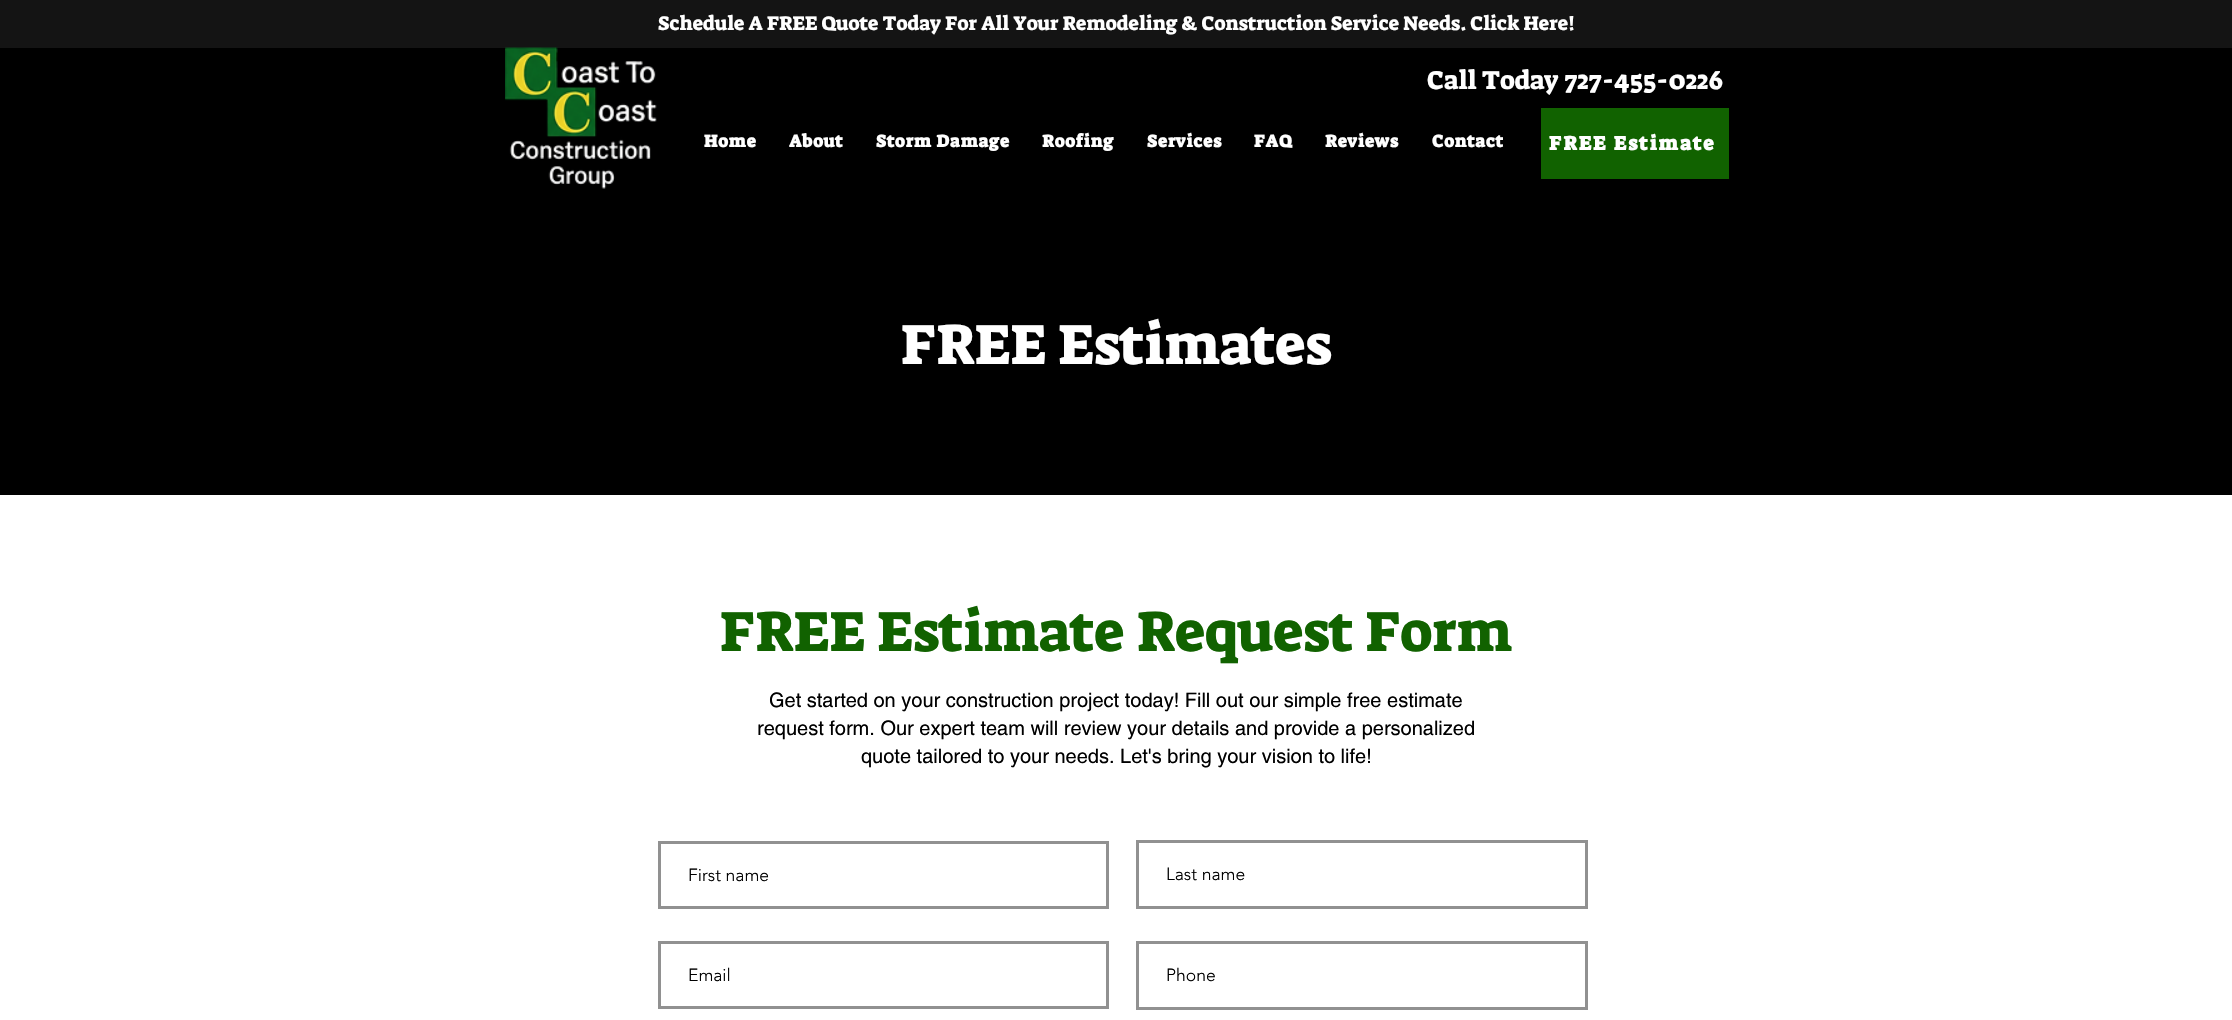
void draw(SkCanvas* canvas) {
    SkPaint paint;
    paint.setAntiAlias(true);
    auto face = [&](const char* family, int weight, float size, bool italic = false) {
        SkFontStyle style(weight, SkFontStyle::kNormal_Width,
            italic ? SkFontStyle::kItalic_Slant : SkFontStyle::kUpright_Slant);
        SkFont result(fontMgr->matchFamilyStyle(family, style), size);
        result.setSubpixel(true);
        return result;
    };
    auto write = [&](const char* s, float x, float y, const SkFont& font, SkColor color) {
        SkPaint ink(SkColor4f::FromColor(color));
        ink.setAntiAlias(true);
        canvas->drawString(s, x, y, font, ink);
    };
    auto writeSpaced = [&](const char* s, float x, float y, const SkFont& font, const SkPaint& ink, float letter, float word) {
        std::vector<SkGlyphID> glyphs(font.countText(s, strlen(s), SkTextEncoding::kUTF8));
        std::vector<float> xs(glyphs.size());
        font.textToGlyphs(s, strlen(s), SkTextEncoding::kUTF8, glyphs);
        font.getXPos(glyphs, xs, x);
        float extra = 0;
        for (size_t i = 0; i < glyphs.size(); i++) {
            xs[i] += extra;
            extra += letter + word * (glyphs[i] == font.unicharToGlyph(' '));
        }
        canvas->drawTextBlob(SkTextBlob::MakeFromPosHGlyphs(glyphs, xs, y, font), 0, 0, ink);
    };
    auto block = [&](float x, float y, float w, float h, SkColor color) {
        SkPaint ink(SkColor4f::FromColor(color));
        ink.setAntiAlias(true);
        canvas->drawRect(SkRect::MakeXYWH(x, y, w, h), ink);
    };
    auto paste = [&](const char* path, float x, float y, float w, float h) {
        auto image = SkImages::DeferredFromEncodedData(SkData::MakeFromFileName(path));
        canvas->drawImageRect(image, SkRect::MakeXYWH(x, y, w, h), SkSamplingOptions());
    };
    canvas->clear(SK_ColorWHITE);
    block(0, 0, 2232, 48, SkColorSetRGB(20, 20, 20));
    auto kFont1 = face("Suez One", 400, 20);
    write("Schedule A FREE Quote Today For All Your Remodeling & Construction Service Needs. Click Here!", 658, 30, kFont1, SK_ColorWHITE);
    block(0, 48, 2232, 447, SK_ColorBLACK);
    paste("pic1.png", 505, 47, 152, 142);
    auto kFont2 = face("Suez One", 400, 26.25f);
    write("Call Today 727-455-0226", 1427, 89, kFont2, SK_ColorWHITE);
    auto kFont3 = face("Suez One", 700, 17.5f);
    paint.setColor(SK_ColorWHITE);
    writeSpaced("Home", 704, 147, kFont3, paint, 0.9f, 0);
    writeSpaced("About", 789, 147, kFont3, paint, 0.9f, 0);
    writeSpaced("Storm Damage", 876, 147, kFont3, paint, 0.9f, 0);
    writeSpaced("Roofing", 1042, 147, kFont3, paint, 0.9f, 0);
    writeSpaced("Services", 1147, 147, kFont3, paint, 0.9f, 0);
    writeSpaced("FAQ", 1254, 147, kFont3, paint, 0.9f, 0);
    writeSpaced("Reviews", 1325, 147, kFont3, paint, 0.9f, 0);
    writeSpaced("Contact", 1432, 147, kFont3, paint, 0.9f, 0);
    block(1541, 108, 188, 71, SkColorSetRGB(17, 98, 0));
    auto kFont4 = face("Suez One", 700, 20);
    writeSpaced("FREE Estimate", 1549, 150, kFont4, paint, 2, 0);
    auto kFont5 = face("Suez One", 400, 57.5f);
    write("FREE Estimates", 901, 364, kFont5, SK_ColorWHITE);
    write("FREE Estimate Request Form", 720, 651, kFont5, SkColorSetRGB(17, 98, 0));
    auto kFont6 = face("helvetica", 400, 20);
    write("Get started on your construction project today! Fill out our simple free estimate", 769, 707, kFont6, SK_ColorBLACK);
    write("request form. Our expert team will review your details and provide a personalized", 757, 735, kFont6, SK_ColorBLACK);
    write("quote tailored to your needs. Let's bring your vision to life!", 861, 763, kFont6, SK_ColorBLACK);
    paint.setStyle(SkPaint::kStroke_Style);
    paint.setStrokeWidth(3);
    paint.setColor(SkColorSetRGB(145, 145, 145));
    canvas->drawRect(SkRect::MakeXYWH(659.5f, 842.5f, 448, 65), paint);
    auto kFont7 = face("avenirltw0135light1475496", 300, 17.5f);
    write("First name", 688, 881, kFont7, SK_ColorBLACK);
    canvas->drawRect(SkRect::MakeXYWH(1137.5f, 841.5f, 449, 66), paint);
    write("Last name", 1166, 880, kFont7, SK_ColorBLACK);
    canvas->drawRect(SkRect::MakeXYWH(659.5f, 942.5f, 448, 65), paint);
    write("Email", 688, 981, kFont7, SK_ColorBLACK);
    canvas->drawRect(SkRect::MakeXYWH(1137.5f, 942.5f, 449, 66), paint);
    write("Phone", 1166, 981, kFont7, SK_ColorBLACK);
}
